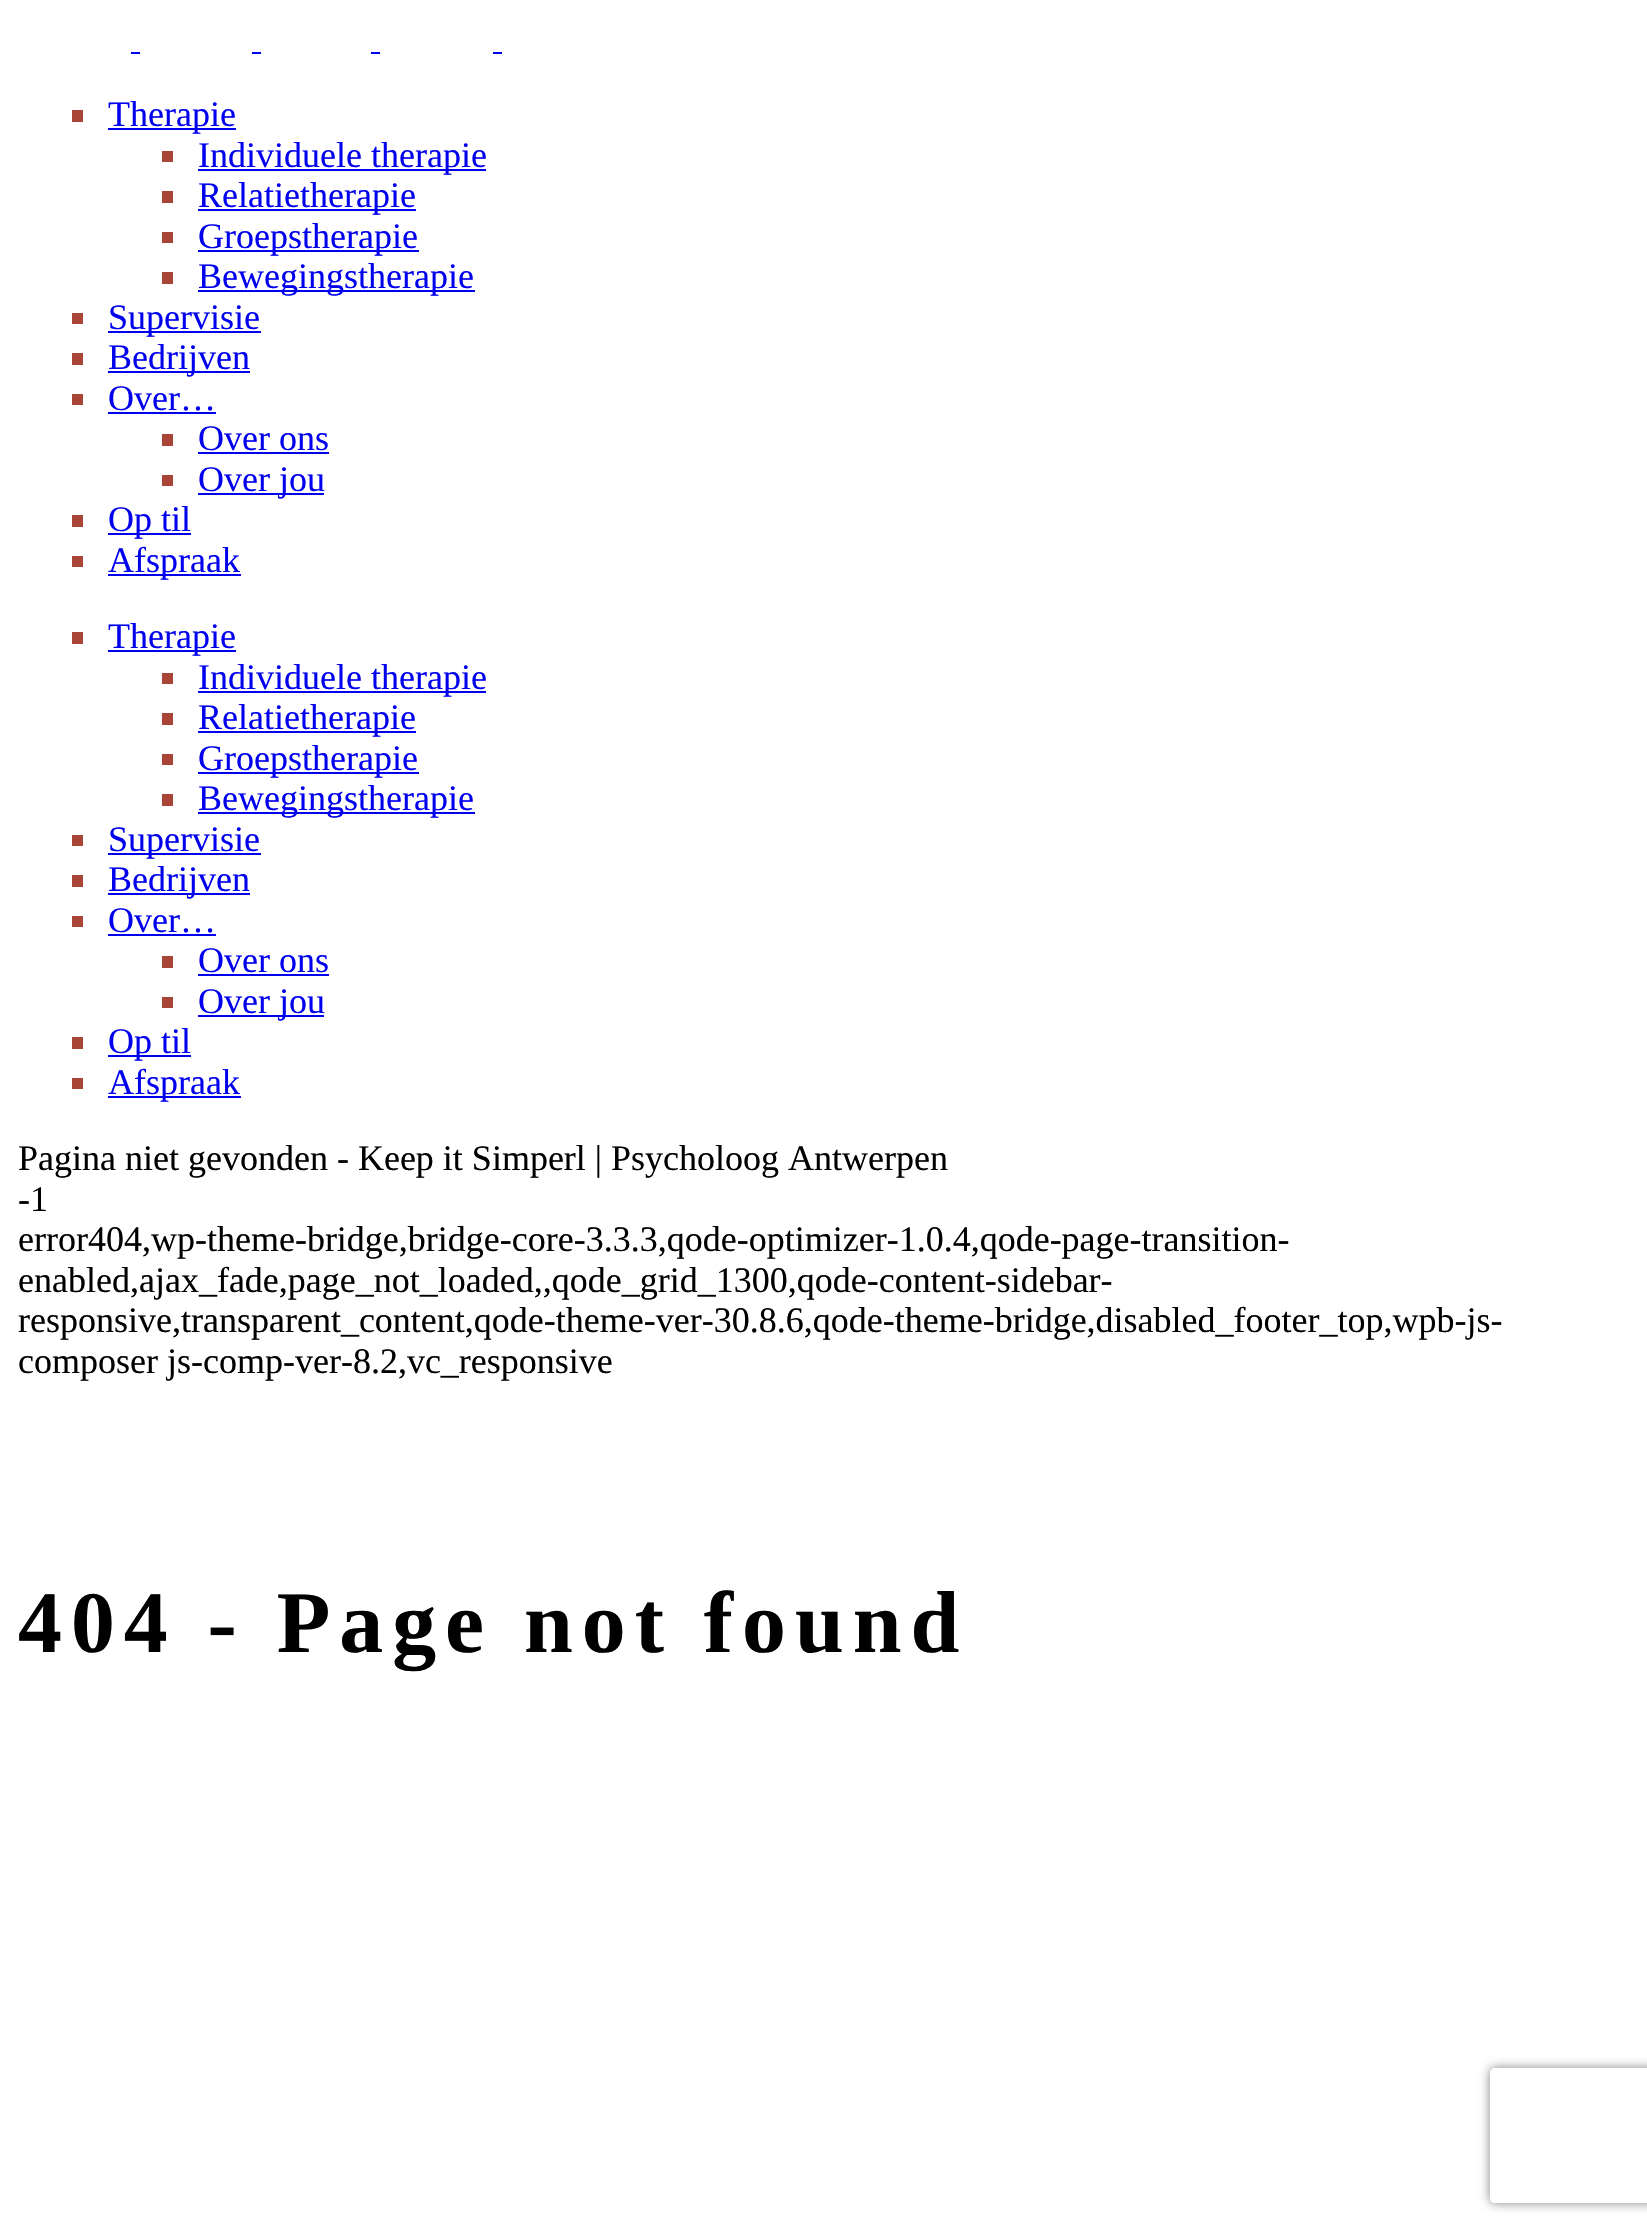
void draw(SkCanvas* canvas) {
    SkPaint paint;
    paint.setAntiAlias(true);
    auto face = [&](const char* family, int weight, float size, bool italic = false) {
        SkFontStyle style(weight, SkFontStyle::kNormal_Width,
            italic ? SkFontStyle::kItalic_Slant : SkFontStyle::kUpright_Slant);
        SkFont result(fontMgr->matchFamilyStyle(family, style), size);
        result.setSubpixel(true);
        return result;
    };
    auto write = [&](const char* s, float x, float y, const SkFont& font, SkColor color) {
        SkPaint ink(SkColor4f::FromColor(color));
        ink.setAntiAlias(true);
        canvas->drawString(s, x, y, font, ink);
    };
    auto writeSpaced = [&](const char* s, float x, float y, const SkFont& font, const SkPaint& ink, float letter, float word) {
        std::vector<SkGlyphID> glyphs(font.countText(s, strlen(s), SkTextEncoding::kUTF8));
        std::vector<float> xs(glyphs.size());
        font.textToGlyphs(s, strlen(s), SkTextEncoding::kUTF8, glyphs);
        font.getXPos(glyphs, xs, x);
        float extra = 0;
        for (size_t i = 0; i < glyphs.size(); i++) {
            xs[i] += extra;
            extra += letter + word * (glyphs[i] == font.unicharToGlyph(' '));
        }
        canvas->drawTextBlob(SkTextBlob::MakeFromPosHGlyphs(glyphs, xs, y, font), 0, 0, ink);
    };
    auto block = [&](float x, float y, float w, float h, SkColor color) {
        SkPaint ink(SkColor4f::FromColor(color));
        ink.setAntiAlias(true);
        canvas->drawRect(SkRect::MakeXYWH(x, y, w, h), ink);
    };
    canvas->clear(SK_ColorWHITE);
    block(131, 52, 9, 2, SkColorSetRGB(0, 0, 238));
    block(252, 52, 9, 2, SkColorSetRGB(0, 0, 238));
    block(371, 52, 9, 2, SkColorSetRGB(0, 0, 238));
    block(493, 52, 9, 2, SkColorSetRGB(0, 0, 238));
    block(72, 110, 11, 12, SkColorSetRGB(168, 69, 54));
    block(108, 128, 128, 2, SkColorSetRGB(0, 0, 238));
    auto kFont1 = face("Liberation Serif", 400, 36);
    write("Therapie", 108, 126, kFont1, SkColorSetRGB(0, 0, 238));
    block(162, 151, 11, 11, SkColorSetRGB(168, 69, 54));
    block(198, 169, 288, 2, SkColorSetRGB(0, 0, 238));
    write("Individuele therapie", 198, 167, kFont1, SkColorSetRGB(0, 0, 238));
    block(162, 191, 11, 12, SkColorSetRGB(168, 69, 54));
    block(198, 209, 218, 2, SkColorSetRGB(0, 0, 238));
    write("Relatietherapie", 198, 207, kFont1, SkColorSetRGB(0, 0, 238));
    block(162, 232, 11, 11, SkColorSetRGB(168, 69, 54));
    block(198, 250, 221, 2, SkColorSetRGB(0, 0, 238));
    write("Groepstherapie", 198, 248, kFont1, SkColorSetRGB(0, 0, 238));
    block(162, 272, 11, 12, SkColorSetRGB(168, 69, 54));
    block(198, 290, 277, 2, SkColorSetRGB(0, 0, 238));
    write("Bewegingstherapie", 198, 288, kFont1, SkColorSetRGB(0, 0, 238));
    block(72, 313, 11, 11, SkColorSetRGB(168, 69, 54));
    block(108, 331, 153, 2, SkColorSetRGB(0, 0, 238));
    write("Supervisie", 108, 329, kFont1, SkColorSetRGB(0, 0, 238));
    block(72, 353, 11, 12, SkColorSetRGB(168, 69, 54));
    block(108, 371, 142, 2, SkColorSetRGB(0, 0, 238));
    write("Bedrijven", 108, 369, kFont1, SkColorSetRGB(0, 0, 238));
    block(72, 394, 11, 11, SkColorSetRGB(168, 69, 54));
    write("Over…", 108, 410, kFont1, SkColorSetRGB(0, 0, 238));
    block(108, 412, 108, 2, SkColorSetRGB(0, 0, 238));
    block(162, 434, 11, 12, SkColorSetRGB(168, 69, 54));
    write("Over ons", 198, 450, kFont1, SkColorSetRGB(0, 0, 238));
    block(198, 452, 131, 2, SkColorSetRGB(0, 0, 238));
    block(162, 475, 11, 11, SkColorSetRGB(168, 69, 54));
    block(198, 493, 126, 2, SkColorSetRGB(0, 0, 238));
    write("Over jou", 198, 491, kFont1, SkColorSetRGB(0, 0, 238));
    block(72, 515, 11, 12, SkColorSetRGB(168, 69, 54));
    block(108, 533, 83, 2, SkColorSetRGB(0, 0, 238));
    write("Op til", 108, 531, kFont1, SkColorSetRGB(0, 0, 238));
    block(72, 556, 11, 11, SkColorSetRGB(168, 69, 54));
    block(108, 574, 133, 2, SkColorSetRGB(0, 0, 238));
    write("Afspraak", 108, 572, kFont1, SkColorSetRGB(0, 0, 238));
    block(72, 632, 11, 12, SkColorSetRGB(168, 69, 54));
    block(108, 650, 128, 2, SkColorSetRGB(0, 0, 238));
    write("Therapie", 108, 648, kFont1, SkColorSetRGB(0, 0, 238));
    block(162, 673, 11, 11, SkColorSetRGB(168, 69, 54));
    block(198, 691, 288, 2, SkColorSetRGB(0, 0, 238));
    write("Individuele therapie", 198, 689, kFont1, SkColorSetRGB(0, 0, 238));
    block(162, 713, 11, 12, SkColorSetRGB(168, 69, 54));
    block(198, 731, 218, 2, SkColorSetRGB(0, 0, 238));
    write("Relatietherapie", 198, 729, kFont1, SkColorSetRGB(0, 0, 238));
    block(162, 754, 11, 11, SkColorSetRGB(168, 69, 54));
    block(198, 772, 221, 2, SkColorSetRGB(0, 0, 238));
    write("Groepstherapie", 198, 770, kFont1, SkColorSetRGB(0, 0, 238));
    block(162, 794, 11, 12, SkColorSetRGB(168, 69, 54));
    block(198, 812, 277, 2, SkColorSetRGB(0, 0, 238));
    write("Bewegingstherapie", 198, 810, kFont1, SkColorSetRGB(0, 0, 238));
    block(72, 835, 11, 11, SkColorSetRGB(168, 69, 54));
    block(108, 853, 153, 2, SkColorSetRGB(0, 0, 238));
    write("Supervisie", 108, 851, kFont1, SkColorSetRGB(0, 0, 238));
    block(72, 875, 11, 12, SkColorSetRGB(168, 69, 54));
    block(108, 893, 142, 2, SkColorSetRGB(0, 0, 238));
    write("Bedrijven", 108, 891, kFont1, SkColorSetRGB(0, 0, 238));
    block(72, 916, 11, 11, SkColorSetRGB(168, 69, 54));
    write("Over…", 108, 932, kFont1, SkColorSetRGB(0, 0, 238));
    block(108, 934, 108, 2, SkColorSetRGB(0, 0, 238));
    block(162, 956, 11, 12, SkColorSetRGB(168, 69, 54));
    write("Over ons", 198, 972, kFont1, SkColorSetRGB(0, 0, 238));
    block(198, 974, 131, 2, SkColorSetRGB(0, 0, 238));
    block(162, 997, 11, 11, SkColorSetRGB(168, 69, 54));
    block(198, 1015, 126, 2, SkColorSetRGB(0, 0, 238));
    write("Over jou", 198, 1013, kFont1, SkColorSetRGB(0, 0, 238));
    block(72, 1037, 11, 12, SkColorSetRGB(168, 69, 54));
    block(108, 1055, 83, 2, SkColorSetRGB(0, 0, 238));
    write("Op til", 108, 1053, kFont1, SkColorSetRGB(0, 0, 238));
    block(72, 1078, 11, 11, SkColorSetRGB(168, 69, 54));
    block(108, 1096, 133, 2, SkColorSetRGB(0, 0, 238));
    write("Afspraak", 108, 1094, kFont1, SkColorSetRGB(0, 0, 238));
    write("Pagina niet gevonden - Keep it Simperl | Psycholoog Antwerpen", 18, 1170, kFont1, SK_ColorBLACK);
    write("-1", 18, 1211, kFont1, SK_ColorBLACK);
    write("error404,wp-theme-bridge,bridge-core-3.3.3,qode-optimizer-1.0.4,qode-page-transition-", 18, 1251, kFont1, SK_ColorBLACK);
    write("enabled,ajax_fade,page_not_loaded,,qode_grid_1300,qode-content-sidebar-", 18, 1292, kFont1, SK_ColorBLACK);
    write("responsive,transparent_content,qode-theme-ver-30.8.6,qode-theme-bridge,disabled_footer_top,wpb-js-", 18, 1332, kFont1, SK_ColorBLACK);
    write("composer js-comp-ver-8.2,vc_responsive", 18, 1373, kFont1, SK_ColorBLACK);
    auto kFont2 = face("Liberation Serif", 700, 87.75f);
    paint.setColor(SK_ColorBLACK);
    writeSpaced("404 - Page not found", 18, 1652, kFont2, paint, 9, 0);
    canvas->save();
    canvas->clipPath(SkPathBuilder(SkPathFillType::kEvenOdd).moveTo(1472, 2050).lineTo(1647, 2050).lineTo(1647, 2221).lineTo(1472, 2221).close().moveTo(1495, 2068).lineTo(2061, 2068).cubicTo(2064, 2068, 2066, 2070, 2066, 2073).lineTo(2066, 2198).cubicTo(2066, 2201, 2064, 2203, 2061, 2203).lineTo(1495, 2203).cubicTo(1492, 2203, 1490, 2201, 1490, 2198).lineTo(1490, 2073).cubicTo(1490, 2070, 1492, 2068, 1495, 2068).close().detach(), true);
    paint.setColor(SkColorSetRGB(128, 128, 128));
    paint.setMaskFilter(SkMaskFilter::MakeBlur(kNormal_SkBlurStyle, 5.5f));
    canvas->drawRoundRect(SkRect::MakeXYWH(1490, 2068, 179, 135), 5, 5, paint);
    paint.setMaskFilter(nullptr);
    canvas->restore();
}
